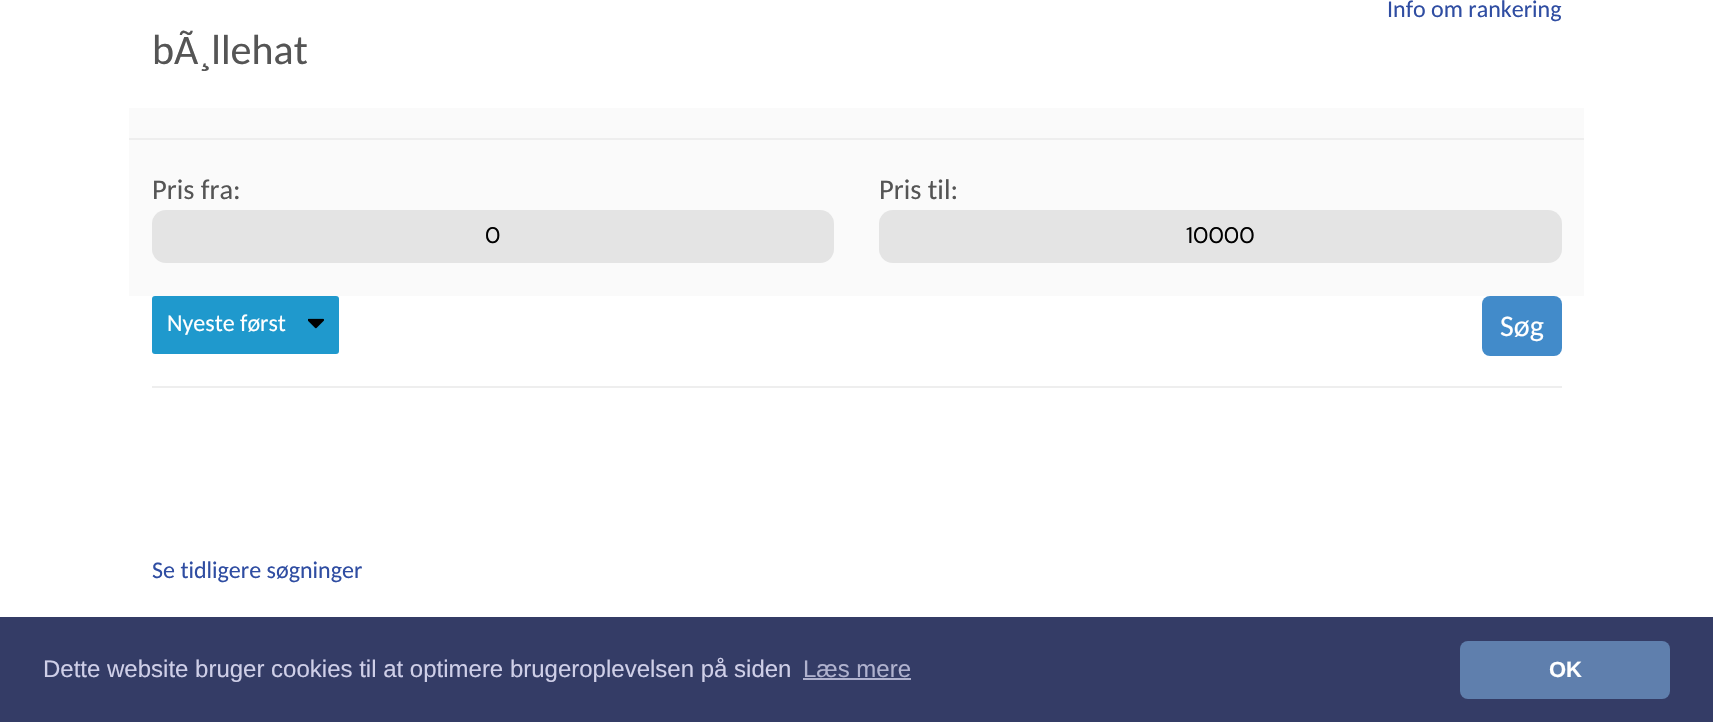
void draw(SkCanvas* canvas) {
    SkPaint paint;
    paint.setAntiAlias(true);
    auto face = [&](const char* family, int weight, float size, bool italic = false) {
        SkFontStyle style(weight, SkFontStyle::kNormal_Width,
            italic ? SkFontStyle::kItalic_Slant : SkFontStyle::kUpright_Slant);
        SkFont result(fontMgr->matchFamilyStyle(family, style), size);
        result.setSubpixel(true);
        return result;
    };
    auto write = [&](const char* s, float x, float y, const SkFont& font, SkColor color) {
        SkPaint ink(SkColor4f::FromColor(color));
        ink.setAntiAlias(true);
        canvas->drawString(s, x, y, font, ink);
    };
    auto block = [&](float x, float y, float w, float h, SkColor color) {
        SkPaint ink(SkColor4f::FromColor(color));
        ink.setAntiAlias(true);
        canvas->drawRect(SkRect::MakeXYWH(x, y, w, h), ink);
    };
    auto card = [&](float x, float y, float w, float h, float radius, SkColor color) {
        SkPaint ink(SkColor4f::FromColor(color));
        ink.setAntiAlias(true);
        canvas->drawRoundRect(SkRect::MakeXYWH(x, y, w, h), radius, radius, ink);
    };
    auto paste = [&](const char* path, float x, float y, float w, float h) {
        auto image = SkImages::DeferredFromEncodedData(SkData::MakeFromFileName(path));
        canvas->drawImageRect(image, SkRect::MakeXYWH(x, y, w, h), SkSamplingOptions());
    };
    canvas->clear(SK_ColorWHITE);
    auto kFont1 = face("Carlito", 400, 24);
    write("Info om rankering", 1387, 17, kFont1, SkColorSetRGB(47, 77, 162));
    auto kFont2 = face("Carlito", 400, 42);
    write("bÃ¸llehat", 152, 64, kFont2, SkColorSetRGB(85, 85, 85));
    block(129, 108, 1455, 188, SkColorSetRGB(250, 250, 250));
    block(129, 138, 1455, 2, SkColorSetRGB(238, 238, 238));
    auto kFont3 = face("Carlito", 400, 28.5f);
    write("Pris fra:", 152, 199, kFont3, SkColorSetRGB(85, 85, 85));
    card(152, 210, 682, 53, 14, SkColorSetRGB(228, 228, 228));
    auto kFont4 = face("DM Sans", 400, 22.5f);
    write("0", 485, 243, kFont4, SK_ColorBLACK);
    write("Pris til:", 879, 199, kFont3, SkColorSetRGB(85, 85, 85));
    card(879, 210, 683, 53, 14, SkColorSetRGB(228, 228, 228));
    write("10000", 1186, 243, kFont4, SK_ColorBLACK);
    card(152, 296, 187, 58, 3, SkColorSetRGB(31, 153, 205));
    paste("pic1.png", 308, 318, 16, 11);
    write("Nyeste først", 167, 331, kFont1, SK_ColorWHITE);
    card(1482, 296, 80, 60, 8, SkColorSetRGB(66, 139, 202));
    auto kFont5 = face("Carlito", 400, 30);
    write("Søg", 1500, 336, kFont5, SK_ColorWHITE);
    block(152, 386, 1410, 2, SkColorSetRGB(238, 238, 238));
    write("Se tidligere søgninger", 152, 578, kFont1, SkColorSetRGB(47, 77, 162));
    block(0, 617, 1713, 105, SkColorSetRGB(52, 60, 102));
    auto kFont6 = face("Liberation Sans", 400, 24);
    write("Dette website bruger cookies til at optimere brugeroplevelsen på siden", 43, 677, kFont6, SkColorSetRGB(207, 207, 232));
    write("Læs mere", 803, 677, kFont6, SkColorSetRGB(176, 178, 206));
    block(803, 678, 108, 2, SkColorSetRGB(176, 178, 206));
    card(1460, 641, 210, 58, 8, SkColorSetRGB(95, 127, 173));
    auto kFont7 = face("Liberation Sans", 700, 22);
    write("OK", 1549, 677, kFont7, SK_ColorWHITE);
}
